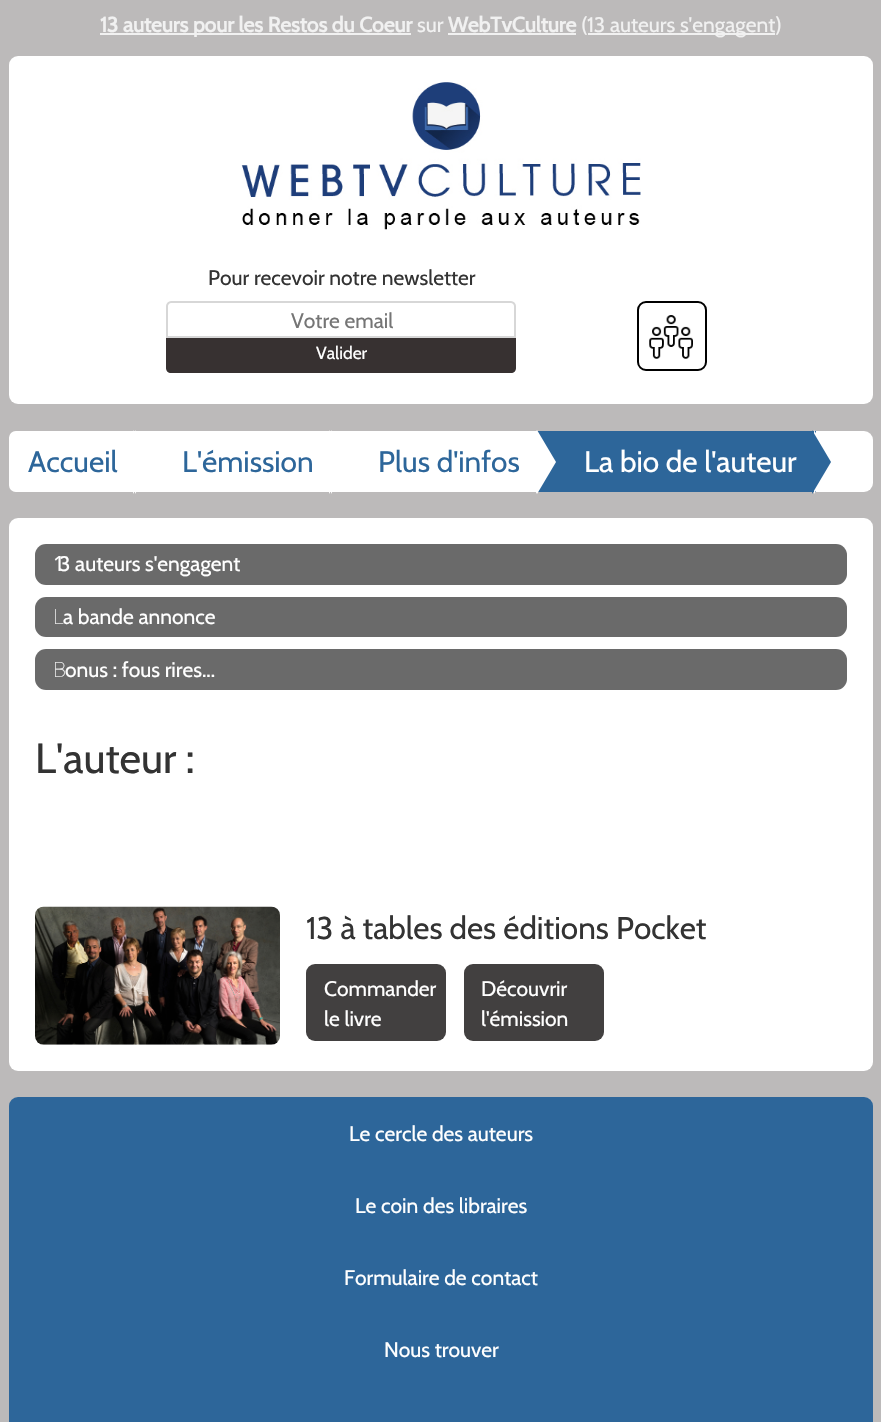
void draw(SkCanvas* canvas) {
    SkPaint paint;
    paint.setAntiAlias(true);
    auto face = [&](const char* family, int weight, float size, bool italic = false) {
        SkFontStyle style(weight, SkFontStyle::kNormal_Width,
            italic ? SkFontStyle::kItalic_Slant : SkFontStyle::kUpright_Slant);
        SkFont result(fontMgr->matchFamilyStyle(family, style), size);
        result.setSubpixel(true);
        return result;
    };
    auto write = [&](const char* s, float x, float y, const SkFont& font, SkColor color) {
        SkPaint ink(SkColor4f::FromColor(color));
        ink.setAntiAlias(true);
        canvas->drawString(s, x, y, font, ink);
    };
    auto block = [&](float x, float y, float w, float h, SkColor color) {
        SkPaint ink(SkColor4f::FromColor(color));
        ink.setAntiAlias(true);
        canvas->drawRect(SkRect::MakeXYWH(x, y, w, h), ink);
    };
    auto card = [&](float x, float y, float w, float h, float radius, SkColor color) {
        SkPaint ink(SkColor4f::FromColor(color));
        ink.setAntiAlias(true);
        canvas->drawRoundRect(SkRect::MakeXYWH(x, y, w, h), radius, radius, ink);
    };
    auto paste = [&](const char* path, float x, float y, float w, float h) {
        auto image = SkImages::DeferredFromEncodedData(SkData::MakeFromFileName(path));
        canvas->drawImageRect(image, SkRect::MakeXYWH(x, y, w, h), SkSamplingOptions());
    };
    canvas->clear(SkColorSetRGB(188, 186, 186));
    block(100, 33, 311, 2, SkColorSetRGB(241, 241, 241));
    auto kFont1 = face("Cabin", 700, 21);
    write("13 auteurs pour les Restos du Coeur", 100, 32, kFont1, SkColorSetRGB(241, 241, 241));
    auto kFont2 = face("Cabin", 400, 21);
    write("sur", 417, 32, kFont2, SkColorSetRGB(241, 241, 241));
    write("WebTvCulture", 448, 32, kFont1, SkColorSetRGB(241, 241, 241));
    block(448, 33, 128, 2, SkColorSetRGB(241, 241, 241));
    write("(", 581, 32, kFont2, SkColorSetRGB(241, 241, 241));
    block(588, 33, 187, 2, SkColorSetRGB(241, 241, 241));
    write("13 auteurs s'engagent)", 587, 32, kFont2, SkColorSetRGB(241, 241, 241));
    card(9, 56, 864, 348, 9, SK_ColorWHITE);
    paste("pic1.png", 241, 82, 400, 148);
    write("Pour recevoir notre newsletter", 208, 285, kFont2, SkColorSetRGB(51, 51, 51));
    paint.setStyle(SkPaint::kStroke_Style);
    paint.setStrokeWidth(2);
    paint.setColor(SkColorSetRGB(215, 215, 215));
    canvas->drawPath(SkPathBuilder().moveTo(171, 302).lineTo(511, 302).cubicTo(513, 302, 515, 304, 515, 306).lineTo(515, 337).lineTo(167, 337).lineTo(167, 306).cubicTo(167, 304, 169, 302, 171, 302).close().detach(), paint);
    write("Votre email", 291, 328, kFont2, SkColorSetRGB(117, 117, 117));
    paint.setStyle(SkPaint::kFill_Style);
    paint.setColor(SkColorSetRGB(55, 49, 49));
    canvas->drawPath(SkPathBuilder().moveTo(166, 338).lineTo(516, 338).lineTo(516, 368).cubicTo(516, 371, 514, 373, 511, 373).lineTo(171, 373).cubicTo(168, 373, 166, 371, 166, 368).close().detach(), paint);
    auto kFont3 = face("Cabin", 400, 17.5f);
    write("Valider", 316, 359, kFont3, SK_ColorWHITE);
    paint.setStyle(SkPaint::kStroke_Style);
    paint.setColor(SK_ColorBLACK);
    canvas->drawRoundRect(SkRect::MakeXYWH(638, 302, 68, 68), 8, 8, paint);
    paste("pic2.png", 649, 315, 44, 44);
    card(9, 431, 864, 61, 9, SK_ColorWHITE);
    paint.setStyle(SkPaint::kFill_Style);
    paint.setColor(SK_ColorWHITE);
    canvas->drawPath(SkPathBuilder().moveTo(16, 432).lineTo(136, 432).lineTo(136, 491).lineTo(16, 491).cubicTo(12.5f, 491, 10, 488.5f, 10, 485).lineTo(10, 438).cubicTo(10, 434.5f, 12.5f, 432, 16, 432).close().detach(), paint);
    paint.setStyle(SkPaint::kStroke_Style);
    canvas->drawPath(SkPathBuilder().moveTo(16, 432).lineTo(136, 432).lineTo(136, 491).lineTo(16, 491).cubicTo(12.5f, 491, 10, 488.5f, 10, 485).lineTo(10, 438).cubicTo(10, 434.5f, 12.5f, 432, 16, 432).close().detach(), paint);
    paint.setStyle(SkPaint::kFill_Style);
    canvas->drawPath(SkPathBuilder().moveTo(135, 494).lineTo(135, 430).lineTo(154, 462).close().detach(), paint);
    canvas->drawPath(SkPathBuilder().moveTo(133, 494).lineTo(133, 430).lineTo(152, 462).close().detach(), paint);
    auto kFont4 = face("Cabin", 400, 29.75f);
    write("Accueil", 28, 472, kFont4, SkColorSetRGB(45, 102, 154));
    canvas->drawPath(SkPathBuilder().moveTo(331, 494).lineTo(331, 430).lineTo(350, 462).close().detach(), paint);
    canvas->drawPath(SkPathBuilder().moveTo(329, 494).lineTo(329, 430).lineTo(348, 462).close().detach(), paint);
    write("L'émission", 182, 472, kFont4, SkColorSetRGB(45, 102, 154));
    block(537, 431, 279, 61, SkColorSetRGB(45, 102, 154));
    canvas->drawPath(SkPathBuilder().moveTo(537, 494).lineTo(537, 430).lineTo(556, 462).close().detach(), paint);
    canvas->drawPath(SkPathBuilder().moveTo(536, 494).lineTo(536, 430).lineTo(555, 462).close().detach(), paint);
    write("Plus d'infos", 378, 472, kFont4, SkColorSetRGB(45, 102, 154));
    canvas->drawPath(SkPathBuilder().moveTo(814, 494).lineTo(814, 430).lineTo(833, 462).close().detach(), paint);
    paint.setColor(SkColorSetRGB(45, 102, 154));
    canvas->drawPath(SkPathBuilder().moveTo(812, 494).lineTo(812, 430).lineTo(831, 462).close().detach(), paint);
    write("La bio de l'auteur", 584, 472, kFont4, SK_ColorWHITE);
    card(9, 518, 864, 553, 9, SK_ColorWHITE);
    card(35, 544, 812, 41, 11, SkColorSetRGB(106, 106, 106));
    auto kFont5 = face("Noto Sans", 400, 21);
    write("1", 53, 571, kFont5, SK_ColorWHITE);
    write("3 auteurs s'engagent", 59, 571, kFont2, SK_ColorWHITE);
    card(35, 597, 812, 40, 11, SkColorSetRGB(106, 106, 106));
    auto kFont6 = face("Noto Sans", 100, 21);
    write("L", 53, 624, kFont6, SK_ColorWHITE);
    write("a bande annonce", 63, 624, kFont2, SK_ColorWHITE);
    card(35, 649, 812, 41, 11, SkColorSetRGB(106, 106, 106));
    write("B", 53, 677, kFont6, SK_ColorWHITE);
    write("onus : fous rires...", 65, 677, kFont2, SK_ColorWHITE);
    auto kFont7 = face("Cabin", 400, 42);
    write("L'auteur :", 35, 773, kFont7, SkColorSetRGB(51, 51, 51));
    paste("pic3.png", 35, 906, 245, 139);
    auto kFont8 = face("Cabin", 400, 31.5f);
    write("13 à tables des éditions Pocket", 306, 939, kFont8, SkColorSetRGB(51, 51, 51));
    card(306, 964, 140, 77, 9, SkColorSetRGB(66, 64, 64));
    write("Commander", 324, 996, kFont2, SK_ColorWHITE);
    write("le livre", 324, 1026, kFont2, SK_ColorWHITE);
    card(464, 964, 140, 77, 9, SkColorSetRGB(66, 64, 64));
    write("Découvrir", 481, 996, kFont2, SK_ColorWHITE);
    write("l'émission", 481, 1026, kFont2, SK_ColorWHITE);
    card(9, 1097, 864, 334, 9, SkColorSetRGB(45, 102, 154));
    write("Le cercle des auteurs", 349, 1141, kFont2, SK_ColorWHITE);
    write("Le coin des libraires", 355, 1213, kFont2, SK_ColorWHITE);
    write("Formulaire de contact", 344, 1285, kFont2, SK_ColorWHITE);
    write("Nous trouver", 384, 1357, kFont2, SK_ColorWHITE);
}
